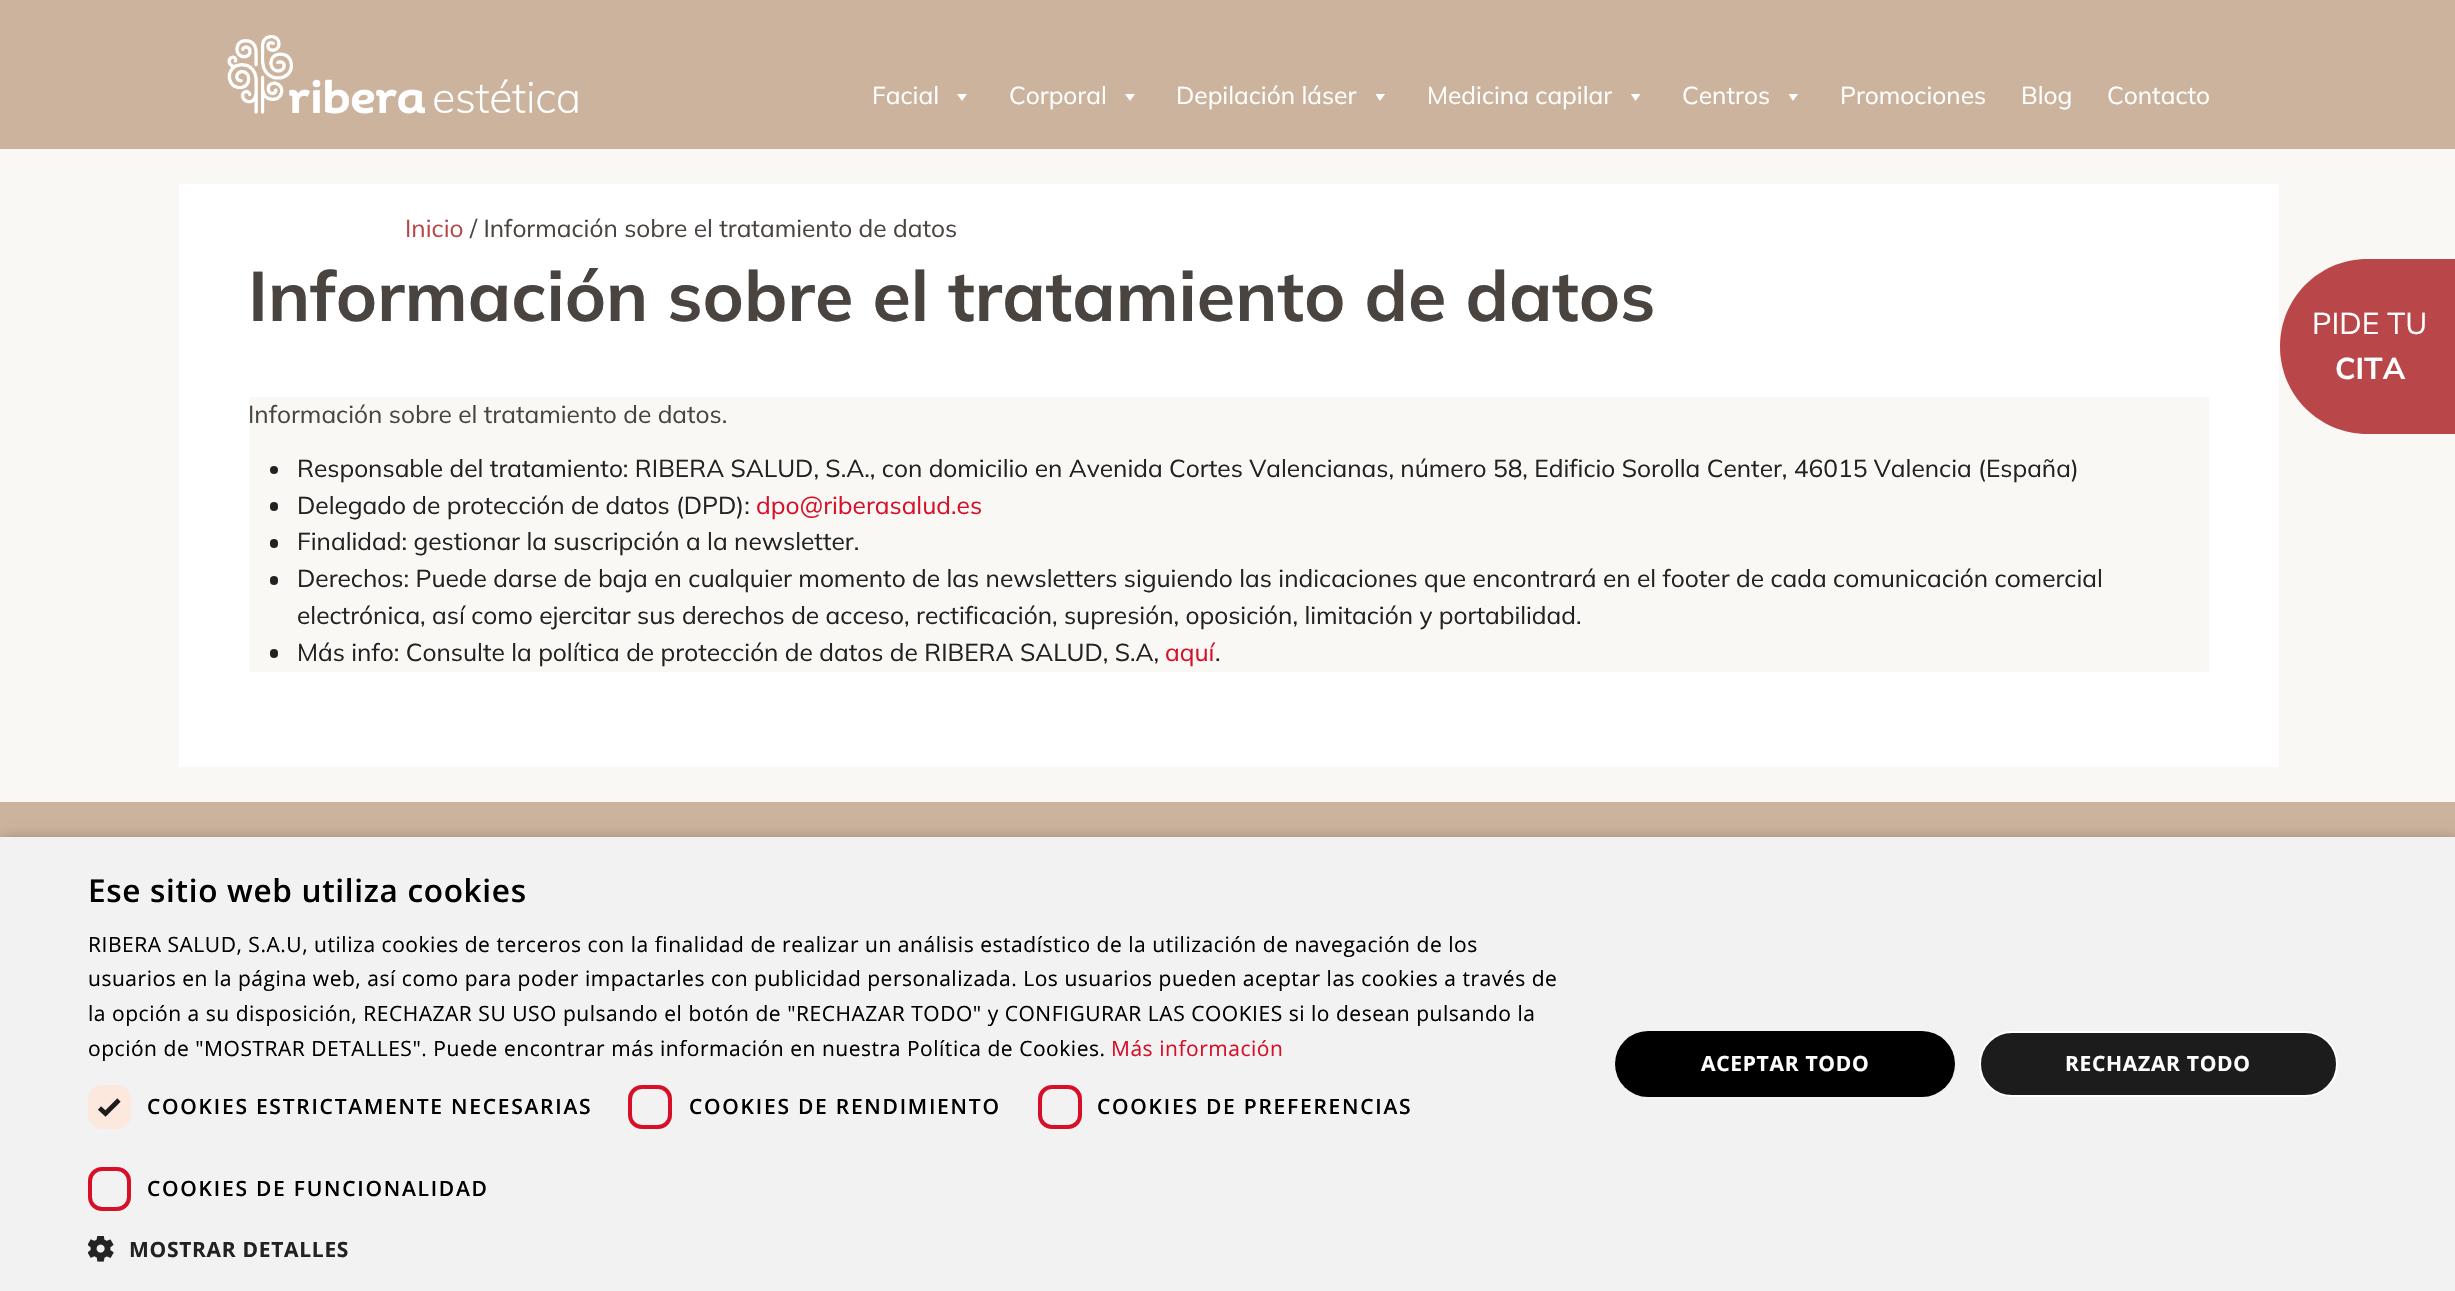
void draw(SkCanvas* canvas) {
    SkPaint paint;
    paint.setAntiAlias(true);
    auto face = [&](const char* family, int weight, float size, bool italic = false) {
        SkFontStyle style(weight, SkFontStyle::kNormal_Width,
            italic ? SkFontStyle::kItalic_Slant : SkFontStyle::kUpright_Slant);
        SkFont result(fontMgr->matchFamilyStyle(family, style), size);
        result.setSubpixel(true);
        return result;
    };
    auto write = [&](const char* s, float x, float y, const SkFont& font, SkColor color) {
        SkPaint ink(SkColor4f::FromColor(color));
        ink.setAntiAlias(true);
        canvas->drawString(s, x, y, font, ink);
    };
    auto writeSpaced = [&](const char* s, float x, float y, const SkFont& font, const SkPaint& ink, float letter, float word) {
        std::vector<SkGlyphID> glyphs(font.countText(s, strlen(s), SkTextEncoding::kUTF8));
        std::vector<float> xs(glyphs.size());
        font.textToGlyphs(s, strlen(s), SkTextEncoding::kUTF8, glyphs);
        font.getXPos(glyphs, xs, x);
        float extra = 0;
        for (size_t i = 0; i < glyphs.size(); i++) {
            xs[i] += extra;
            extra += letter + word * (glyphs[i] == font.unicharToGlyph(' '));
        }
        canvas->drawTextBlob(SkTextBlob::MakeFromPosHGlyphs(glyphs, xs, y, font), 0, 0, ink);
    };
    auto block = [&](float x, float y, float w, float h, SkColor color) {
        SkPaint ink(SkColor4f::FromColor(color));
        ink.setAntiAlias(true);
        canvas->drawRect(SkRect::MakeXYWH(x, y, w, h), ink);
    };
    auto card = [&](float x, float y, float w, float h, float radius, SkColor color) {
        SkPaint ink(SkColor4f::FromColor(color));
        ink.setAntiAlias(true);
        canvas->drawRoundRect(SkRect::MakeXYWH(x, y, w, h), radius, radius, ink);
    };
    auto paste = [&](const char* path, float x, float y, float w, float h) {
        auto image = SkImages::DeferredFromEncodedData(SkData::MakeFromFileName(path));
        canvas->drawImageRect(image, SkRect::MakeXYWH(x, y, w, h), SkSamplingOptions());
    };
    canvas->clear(SkColorSetRGB(250, 248, 245));
    block(0, 0, 2455, 149, SkColorSetRGB(204, 179, 157));
    paste("pic1.png", 227, 35, 351, 79);
    auto kFont1 = face("Mulish", 400, 24.5f);
    write("Facial", 872, 104, kFont1, SK_ColorWHITE);
    paint.setColor(SK_ColorWHITE);
    canvas->drawPath(SkPathBuilder().moveTo(967, 94).lineTo(962, 101).lineTo(957, 94).close().detach(), paint);
    write("Corporal", 1009, 104, kFont1, SK_ColorWHITE);
    canvas->drawPath(SkPathBuilder().moveTo(1135, 94).lineTo(1130, 101).lineTo(1125, 94).close().detach(), paint);
    write("Depilación láser", 1176, 104, kFont1, SK_ColorWHITE);
    canvas->drawPath(SkPathBuilder().moveTo(1385, 94).lineTo(1380, 101).lineTo(1375.5f, 94).close().detach(), paint);
    write("Medicina capilar", 1427, 104, kFont1, SK_ColorWHITE);
    canvas->drawPath(SkPathBuilder().moveTo(1640.5f, 94).lineTo(1635.5f, 101).lineTo(1631, 94).close().detach(), paint);
    write("Centros", 1682, 104, kFont1, SK_ColorWHITE);
    canvas->drawPath(SkPathBuilder().moveTo(1798, 94).lineTo(1793, 101).lineTo(1788.5f, 94).close().detach(), paint);
    write("Promociones", 1840, 104, kFont1, SK_ColorWHITE);
    write("Blog", 2021, 104, kFont1, SK_ColorWHITE);
    write("Contacto", 2107, 104, kFont1, SK_ColorWHITE);
    block(179, 184, 2100, 583, SK_ColorWHITE);
    write("Inicio", 405, 237, kFont1, SkColorSetRGB(185, 71, 73));
    write("/ Información sobre el tratamiento de datos", 470, 237, kFont1, SkColorSetRGB(74, 68, 65));
    auto kFont2 = face("Mulish", 700, 70);
    write("Información sobre el tratamiento de datos", 248, 321, kFont2, SkColorSetRGB(74, 68, 65));
    block(249, 397, 1960, 275, SkColorSetRGB(250, 248, 245));
    write("Información sobre el tratamiento de datos.", 248, 423, kFont1, SkColorSetRGB(74, 68, 65));
    paint.setColor(SkColorSetRGB(34, 34, 34));
    canvas->drawCircle(274, 470, 4, paint);
    write("Responsable del tratamiento: RIBERA SALUD, S.A., con domicilio en Avenida Cortes Valencianas, número 58, Edificio Sorolla Center, 46015 Valencia (España)", 297, 477, kFont1, SkColorSetRGB(34, 34, 34));
    card(270, 502, 8, 9, 4, SkColorSetRGB(34, 34, 34));
    write("Delegado de protección de datos (DPD):", 297, 514, kFont1, SkColorSetRGB(34, 34, 34));
    write("dpo@riberasalud.es", 756, 514, kFont1, SkColorSetRGB(215, 16, 41));
    card(270, 539, 8, 9, 4, SkColorSetRGB(34, 34, 34));
    write("Finalidad: gestionar la suscripción a la newsletter.", 297, 550, kFont1, SkColorSetRGB(34, 34, 34));
    card(270, 576, 8, 9, 4, SkColorSetRGB(34, 34, 34));
    write("Derechos: Puede darse de baja en cualquier momento de las newsletters siguiendo las indicaciones que encontrará en el footer de cada comunicación comercial", 297, 587, kFont1, SkColorSetRGB(34, 34, 34));
    write("electrónica, así como ejercitar sus derechos de acceso, rectificación, supresión, oposición, limitación y portabilidad.", 297, 624, kFont1, SkColorSetRGB(34, 34, 34));
    card(270, 649, 8, 9, 4, SkColorSetRGB(34, 34, 34));
    write("Más info: Consulte la política de protección de datos de RIBERA SALUD, S.A,", 297, 661, kFont1, SkColorSetRGB(34, 34, 34));
    write("aquí", 1165, 661, kFont1, SkColorSetRGB(215, 16, 41));
    write(".", 1215, 661, kFont1, SkColorSetRGB(34, 34, 34));
    paint.setColor(SkColorSetRGB(185, 71, 73));
    canvas->drawPath(SkPathBuilder().moveTo(2367.5f, 259).lineTo(2455, 259).lineTo(2455, 434).lineTo(2367.5f, 434).cubicTo(2319, 434, 2280, 395, 2280, 346.5f).cubicTo(2280, 298, 2319, 259, 2367.5f, 259).close().detach(), paint);
    auto kFont3 = face("Mulish", 400, 30);
    write("PIDE TU", 2312, 334, kFont3, SK_ColorWHITE);
    auto kFont4 = face("Mulish", 700, 30);
    write("CITA", 2335, 379, kFont4, SK_ColorWHITE);
    block(0, 802, 2455, 35, SkColorSetRGB(204, 179, 157));
    paint.setColor(SkColorSetARGB(89, 0, 0, 0));
    paint.setMaskFilter(SkMaskFilter::MakeBlur(kNormal_SkBlurStyle, 7));
    canvas->drawRect(SkRect::MakeXYWH(2, 840, 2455, 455), paint);
    paint.setMaskFilter(nullptr);
    block(0, 837, 2455, 454, SkColorSetRGB(242, 242, 242));
    auto kFont5 = face("Open Sans", 600, 31.5f);
    paint.setColor(SK_ColorBLACK);
    writeSpaced("Ese sitio web utiliza cookies", 88, 902, kFont5, paint, 0.7f, 0);
    auto kFont6 = face("Open Sans", 400, 21);
    writeSpaced("RIBERA SALUD, S.A.U, utiliza cookies de terceros con la finalidad de realizar un análisis estadístico de la utilización de navegación de los", 88, 952, kFont6, paint, 0.53f, 0);
    writeSpaced("usuarios en la página web, así como para poder impactarles con publicidad personalizada. Los usuarios pueden aceptar las cookies a través de", 88, 986, kFont6, paint, 0.53f, 0);
    writeSpaced("la opción a su disposición, RECHAZAR SU USO pulsando el botón de \"RECHAZAR TODO\" y CONFIGURAR LAS COOKIES si lo desean pulsando la", 88, 1021, kFont6, paint, 0.53f, 0);
    writeSpaced("opción de \"MOSTRAR DETALLES\". Puede encontrar más información en nuestra Política de Cookies.", 88, 1056, kFont6, paint, 0.53f, 0);
    paint.setColor(SkColorSetRGB(215, 16, 41));
    writeSpaced("Más información", 1111, 1056, kFont6, paint, 0.53f, 0);
    card(88, 1085, 43, 44, 14, SkColorSetRGB(253, 232, 222));
    paint.setStyle(SkPaint::kStroke_Style);
    paint.setStrokeWidth(4.6f);
    paint.setColor(SkColorSetRGB(28, 28, 28));
    canvas->drawPath(SkPathBuilder().moveTo(99.5f, 1108).lineTo(105.5f, 1113.5f).lineTo(119, 1100).detach(), paint);
    auto kFont7 = face("Open Sans", 600, 21);
    paint.setStyle(SkPaint::kFill_Style);
    paint.setColor(SK_ColorBLACK);
    writeSpaced("COOKIES ESTRICTAMENTE NECESARIAS", 147, 1114, kFont7, paint, 1.75f, 0);
    paint.setStyle(SkPaint::kStroke_Style);
    paint.setStrokeWidth(4);
    paint.setColor(SkColorSetRGB(215, 16, 41));
    canvas->drawRoundRect(SkRect::MakeXYWH(630, 1087, 40, 40), 12, 12, paint);
    paint.setStyle(SkPaint::kFill_Style);
    paint.setColor(SK_ColorBLACK);
    writeSpaced("COOKIES DE RENDIMIENTO", 689, 1114, kFont7, paint, 1.75f, 0);
    paint.setStyle(SkPaint::kStroke_Style);
    paint.setColor(SkColorSetRGB(215, 16, 41));
    canvas->drawRoundRect(SkRect::MakeXYWH(1040, 1087, 40, 40), 12, 12, paint);
    paint.setStyle(SkPaint::kFill_Style);
    paint.setColor(SK_ColorBLACK);
    writeSpaced("COOKIES DE PREFERENCIAS", 1097, 1114, kFont7, paint, 1.75f, 0);
    paint.setStyle(SkPaint::kStroke_Style);
    paint.setColor(SkColorSetRGB(215, 16, 41));
    canvas->drawRoundRect(SkRect::MakeXYWH(90, 1169, 39, 40), 12, 12, paint);
    paint.setStyle(SkPaint::kFill_Style);
    paint.setColor(SK_ColorBLACK);
    writeSpaced("COOKIES DE FUNCIONALIDAD", 147, 1196, kFont7, paint, 1.75f, 0);
    paste("pic2.png", 88, 1236, 26, 26);
    auto kFont8 = face("Open Sans", 700, 21);
    paint.setColor(SkColorSetRGB(34, 34, 34));
    writeSpaced("MOSTRAR DETALLES", 129, 1257, kFont8, paint, 0.7f, 0);
    card(1615, 1031, 340, 66, 33, SK_ColorBLACK);
    paint.setColor(SK_ColorWHITE);
    writeSpaced("ACEPTAR TODO", 1701, 1071, kFont8, paint, 0.7f, 0);
    paint.setColor(SkColorSetRGB(28, 28, 28));
    canvas->drawRoundRect(SkRect::MakeXYWH(1980, 1032, 357, 64), 32, 32, paint);
    paint.setStyle(SkPaint::kStroke_Style);
    paint.setStrokeWidth(2);
    paint.setColor(SK_ColorWHITE);
    canvas->drawRoundRect(SkRect::MakeXYWH(1980, 1032, 357, 64), 32, 32, paint);
    paint.setStyle(SkPaint::kFill_Style);
    writeSpaced("RECHAZAR TODO", 2065, 1071, kFont8, paint, 0.7f, 0);
}
